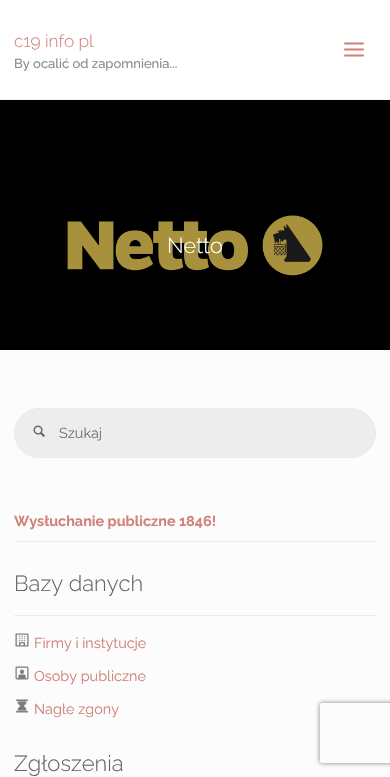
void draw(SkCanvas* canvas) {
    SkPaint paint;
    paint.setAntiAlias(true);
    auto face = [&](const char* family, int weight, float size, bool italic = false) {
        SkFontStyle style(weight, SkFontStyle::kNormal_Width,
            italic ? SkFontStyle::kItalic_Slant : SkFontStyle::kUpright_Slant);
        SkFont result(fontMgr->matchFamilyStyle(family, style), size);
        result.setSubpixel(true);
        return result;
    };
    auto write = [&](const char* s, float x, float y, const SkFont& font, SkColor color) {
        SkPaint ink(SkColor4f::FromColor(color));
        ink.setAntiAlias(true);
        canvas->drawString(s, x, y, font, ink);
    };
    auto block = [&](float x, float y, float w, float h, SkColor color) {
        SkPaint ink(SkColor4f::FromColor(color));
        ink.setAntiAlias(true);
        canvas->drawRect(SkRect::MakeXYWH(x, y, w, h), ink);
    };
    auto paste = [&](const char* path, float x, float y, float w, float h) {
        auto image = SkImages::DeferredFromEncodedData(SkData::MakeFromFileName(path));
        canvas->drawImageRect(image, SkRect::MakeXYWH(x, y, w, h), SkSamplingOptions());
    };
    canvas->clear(SkColorSetRGB(252, 252, 252));
    block(0, 0, 390, 99, SK_ColorWHITE);
    block(0, 99, 390, 1, SkColorSetRGB(242, 242, 242));
    auto kFont1 = face("Raleway", 300, 17.25f);
    write("c19 info pl", 14, 47, kFont1, SkColorSetRGB(209, 130, 121));
    auto kFont2 = face("Raleway", 500, 13);
    write("By ocalić od zapomnienia...", 14, 68, kFont2, SkColorSetRGB(140, 140, 140));
    paste("pic1.png", 344, 42, 20, 15);
    paste("pic2.png", 0, 100, 390, 250);
    paint.setColor(SkColorSetARGB(84, 0, 0, 0));
    canvas->drawPath(SkPathBuilder().moveTo(24, 200).lineTo(366, 200).cubicTo(371.5f, 200, 376, 204.5f, 376, 210).lineTo(376, 350).lineTo(14, 350).lineTo(14, 210).cubicTo(14, 204.5f, 18.5f, 200, 24, 200).close().detach(), paint);
    auto kFont3 = face("Raleway", 300, 21.5f);
    write("Netto", 167, 253, kFont3, SK_ColorWHITE);
    paint.setColor(SkColorSetRGB(237, 237, 237));
    canvas->drawRoundRect(SkRect::MakeXYWH(14.5f, 408.5f, 361, 49), 24.5f, 24.5f, paint);
    paint.setStyle(SkPaint::kStroke_Style);
    paint.setStrokeWidth(1);
    paint.setColor(SkColorSetRGB(235, 235, 235));
    canvas->drawRoundRect(SkRect::MakeXYWH(14.5f, 408.5f, 361, 49), 24.5f, 24.5f, paint);
    paste("pic3.png", 33, 425, 12, 12);
    auto kFont4 = face("Raleway", 400, 14.4f);
    write("Szukaj", 59, 438, kFont4, SkColorSetRGB(117, 117, 117));
    auto kFont5 = face("Raleway", 700, 14.4f);
    write("Wysłuchanie publiczne 1846!", 14, 526, kFont5, SkColorSetRGB(209, 130, 121));
    block(14, 541, 362, 1, SkColorSetRGB(237, 237, 237));
    auto kFont6 = face("Raleway", 300, 22);
    write("Bazy danych", 14, 591, kFont6, SkColorSetRGB(102, 102, 102));
    block(14, 615, 362, 1, SkColorSetRGB(237, 237, 237));
    paste("pic4.png", 15, 633, 14, 14);
    write("Firmy i instytucje", 34, 648, kFont4, SkColorSetRGB(209, 130, 121));
    paste("pic5.png", 15, 666, 14, 14);
    write("Osoby publiczne", 34, 681, kFont4, SkColorSetRGB(209, 130, 121));
    paste("pic6.png", 15, 699, 14, 14);
    write("Nagłe zgony", 34, 714, kFont4, SkColorSetRGB(209, 130, 121));
    write("Zgłoszenia", 14, 771, kFont6, SkColorSetRGB(102, 102, 102));
    canvas->save();
    canvas->clipPath(SkPathBuilder(SkPathFillType::kEvenOdd).moveTo(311, 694).lineTo(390, 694).lineTo(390, 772).lineTo(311, 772).close().moveTo(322, 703).lineTo(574, 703).cubicTo(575, 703, 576, 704, 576, 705).lineTo(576, 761).cubicTo(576, 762, 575, 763, 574, 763).lineTo(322, 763).cubicTo(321, 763, 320, 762, 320, 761).lineTo(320, 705).cubicTo(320, 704, 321, 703, 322, 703).close().detach(), true);
    paint.setStyle(SkPaint::kFill_Style);
    paint.setColor(SkColorSetRGB(128, 128, 128));
    paint.setMaskFilter(SkMaskFilter::MakeBlur(kNormal_SkBlurStyle, 2.5f));
    canvas->drawRoundRect(SkRect::MakeXYWH(320, 703, 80, 60), 2, 2, paint);
    paint.setMaskFilter(nullptr);
    canvas->restore();
}
